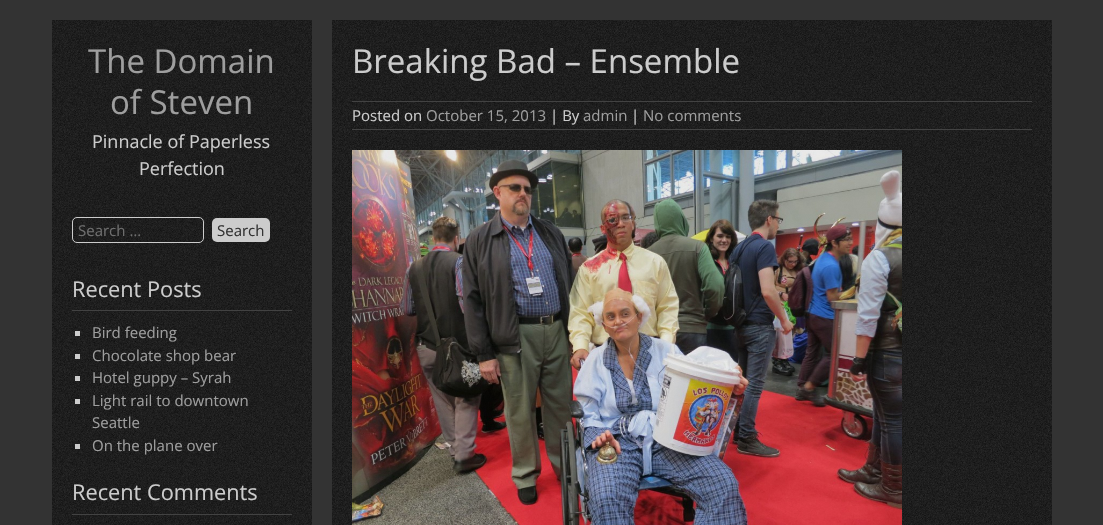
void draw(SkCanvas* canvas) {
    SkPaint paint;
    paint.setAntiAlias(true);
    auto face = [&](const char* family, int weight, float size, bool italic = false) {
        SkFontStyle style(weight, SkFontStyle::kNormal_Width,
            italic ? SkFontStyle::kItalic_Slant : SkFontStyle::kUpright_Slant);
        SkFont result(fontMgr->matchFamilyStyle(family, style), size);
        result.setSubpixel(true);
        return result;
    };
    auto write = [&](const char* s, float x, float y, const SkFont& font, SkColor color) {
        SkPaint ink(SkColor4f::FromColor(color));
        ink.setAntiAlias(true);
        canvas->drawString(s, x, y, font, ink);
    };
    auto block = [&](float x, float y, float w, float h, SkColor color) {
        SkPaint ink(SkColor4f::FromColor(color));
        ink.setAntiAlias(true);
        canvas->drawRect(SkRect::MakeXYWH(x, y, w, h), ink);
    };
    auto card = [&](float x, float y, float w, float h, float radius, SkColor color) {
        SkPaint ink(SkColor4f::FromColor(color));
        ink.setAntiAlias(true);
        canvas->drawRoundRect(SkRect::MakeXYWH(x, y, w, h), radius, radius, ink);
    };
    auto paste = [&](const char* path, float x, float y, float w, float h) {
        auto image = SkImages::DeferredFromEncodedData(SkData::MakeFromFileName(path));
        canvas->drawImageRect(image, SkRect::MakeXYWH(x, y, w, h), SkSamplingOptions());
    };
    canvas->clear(SkColorSetRGB(51, 51, 51));
    paste("pic1.png", 52, 20, 260, 505);
    auto kFont1 = face("Open Sans", 400, 33);
    write("The Domain", 88, 73, kFont1, SkColorSetRGB(158, 158, 158));
    write("of Steven", 110, 114, kFont1, SkColorSetRGB(158, 158, 158));
    auto kFont2 = face("Open Sans", 400, 18);
    write("Pinnacle of Paperless", 92, 148, kFont2, SkColorSetRGB(204, 204, 204));
    write("Perfection", 139, 175, kFont2, SkColorSetRGB(204, 204, 204));
    paint.setStyle(SkPaint::kStroke_Style);
    paint.setStrokeWidth(1);
    paint.setColor(SkColorSetRGB(204, 204, 204));
    canvas->drawRoundRect(SkRect::MakeXYWH(72.5f, 217.5f, 131, 25), 4.5f, 4.5f, paint);
    auto kFont3 = face("Open Sans", 400, 15);
    write("Search …", 78, 236, kFont3, SkColorSetRGB(110, 110, 110));
    card(212, 218, 58, 24, 5, SkColorSetRGB(204, 204, 204));
    write("Search", 217, 236, kFont3, SkColorSetRGB(51, 51, 51));
    block(72, 310, 220, 1, SkColorSetRGB(66, 66, 66));
    auto kFont4 = face("Open Sans", 400, 21.75f);
    write("Recent Posts", 72, 297, kFont4, SkColorSetRGB(204, 204, 204));
    block(75, 331, 5, 5, SkColorSetRGB(204, 204, 204));
    write("Bird feeding", 92, 338, kFont3, SkColorSetRGB(158, 158, 158));
    block(75, 354, 5, 5, SkColorSetRGB(204, 204, 204));
    write("Chocolate shop bear", 92, 361, kFont3, SkColorSetRGB(158, 158, 158));
    block(75, 376, 5, 5, SkColorSetRGB(204, 204, 204));
    write("Hotel guppy – Syrah", 92, 383, kFont3, SkColorSetRGB(158, 158, 158));
    block(75, 399, 5, 5, SkColorSetRGB(204, 204, 204));
    write("Light rail to downtown", 92, 406, kFont3, SkColorSetRGB(158, 158, 158));
    write("Seattle", 92, 428, kFont3, SkColorSetRGB(158, 158, 158));
    block(75, 444, 5, 5, SkColorSetRGB(204, 204, 204));
    write("On the plane over", 92, 451, kFont3, SkColorSetRGB(158, 158, 158));
    block(72, 514, 220, 1, SkColorSetRGB(66, 66, 66));
    write("Recent Comments", 72, 500, kFont4, SkColorSetRGB(204, 204, 204));
    paste("pic2.png", 332, 20, 720, 505);
    write("Breaking Bad – Ensemble", 352, 73, kFont1, SkColorSetRGB(204, 204, 204));
    block(352, 101, 680, 1, SkColorSetRGB(66, 66, 66));
    block(352, 129, 680, 1, SkColorSetRGB(66, 66, 66));
    write("Posted on", 352, 121, kFont3, SkColorSetRGB(204, 204, 204));
    write("October 15, 2013", 426, 121, kFont3, SkColorSetRGB(158, 158, 158));
    write("| By", 550, 121, kFont3, SkColorSetRGB(204, 204, 204));
    write("admin", 583, 121, kFont3, SkColorSetRGB(158, 158, 158));
    write("|", 631, 121, kFont3, SkColorSetRGB(204, 204, 204));
    write("No comments", 643, 121, kFont3, SkColorSetRGB(158, 158, 158));
    paste("pic3.png", 352, 150, 550, 375);
}
